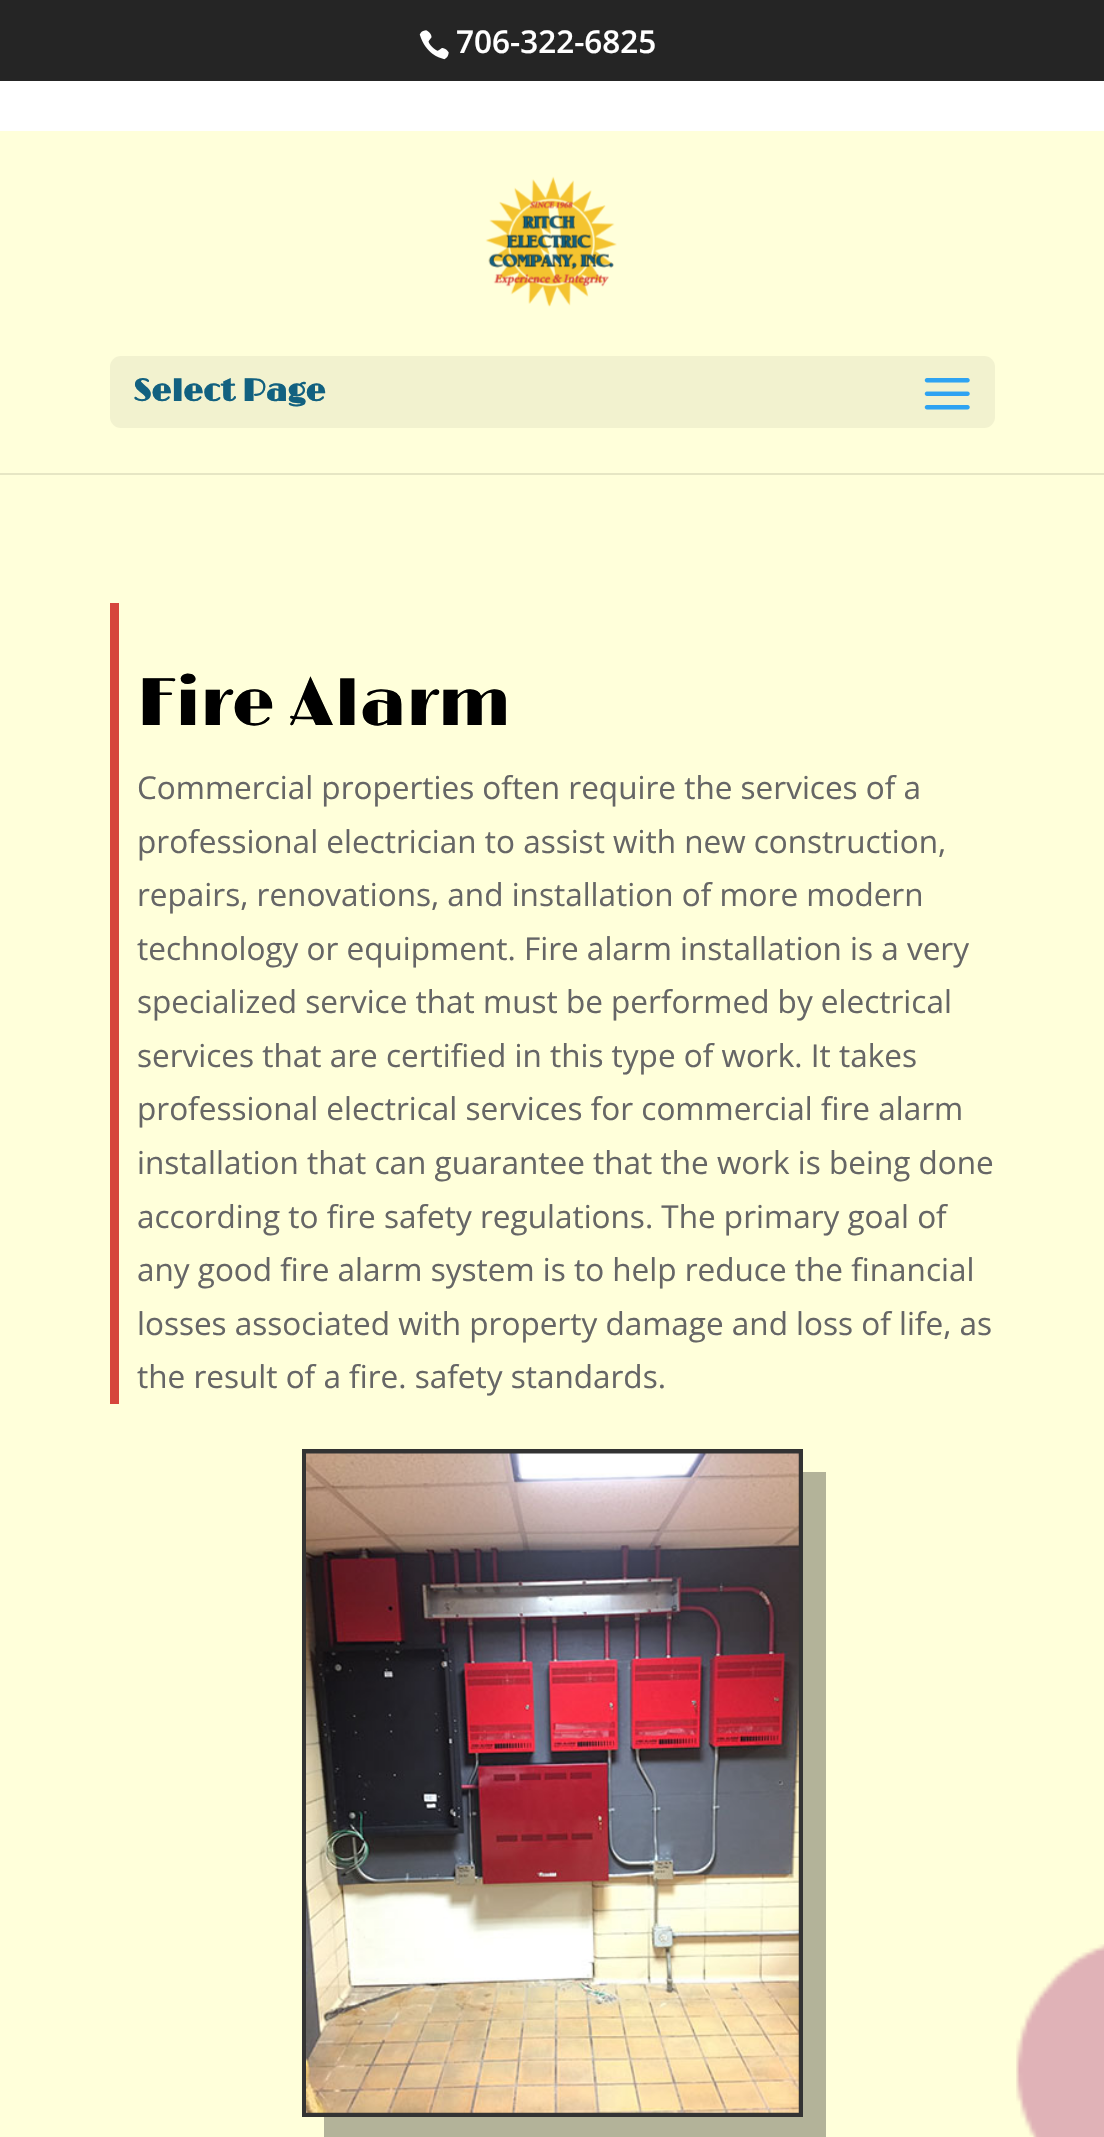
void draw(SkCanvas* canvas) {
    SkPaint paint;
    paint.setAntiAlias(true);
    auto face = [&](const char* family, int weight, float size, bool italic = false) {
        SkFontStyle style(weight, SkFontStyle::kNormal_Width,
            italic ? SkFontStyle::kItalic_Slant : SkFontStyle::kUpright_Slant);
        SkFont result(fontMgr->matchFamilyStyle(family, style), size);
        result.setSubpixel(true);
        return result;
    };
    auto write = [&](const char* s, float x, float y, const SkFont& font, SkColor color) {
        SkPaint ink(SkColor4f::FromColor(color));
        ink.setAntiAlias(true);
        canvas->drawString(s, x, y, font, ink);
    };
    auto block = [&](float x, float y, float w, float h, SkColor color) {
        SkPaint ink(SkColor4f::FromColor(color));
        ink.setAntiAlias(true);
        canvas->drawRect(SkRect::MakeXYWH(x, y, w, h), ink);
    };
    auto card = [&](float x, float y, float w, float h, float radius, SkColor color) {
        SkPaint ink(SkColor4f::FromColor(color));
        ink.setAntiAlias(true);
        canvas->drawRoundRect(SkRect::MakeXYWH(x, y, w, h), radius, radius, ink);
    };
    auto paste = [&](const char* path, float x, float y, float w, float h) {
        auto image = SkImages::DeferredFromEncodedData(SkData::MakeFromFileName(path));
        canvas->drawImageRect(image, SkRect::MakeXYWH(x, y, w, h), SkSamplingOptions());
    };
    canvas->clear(SK_ColorWHITE);
    block(0, 0, 1104, 81, SkColorSetRGB(37, 37, 37));
    paste("pic1.png", 419, 30, 30, 30);
    auto kFont1 = face("Open Sans", 600, 31.5f);
    write("706-322-6825", 456, 53, kFont1, SK_ColorWHITE);
    paint.setColor(SkColorSetRGB(230, 230, 196));
    canvas->drawPath(SkPathBuilder().moveTo(0, 472).lineTo(0, 475).lineTo(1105, 475).lineTo(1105, 133).lineTo(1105, 472).close().detach(), paint);
    block(0, 131, 1104, 342, SkColorSetRGB(255, 255, 218));
    paste("pic2.png", 485, 176, 132, 131);
    card(110, 356, 885, 72, 11, SkColorSetRGB(242, 242, 207));
    auto kFont2 = face("Limelight", 700, 31.5f);
    write("Select Page", 133, 401, kFont2, SkColorSetRGB(18, 97, 128));
    paste("pic3.png", 924, 378, 46, 32);
    block(0, 475, 1104, 1662, SkColorSetRGB(255, 255, 218));
    block(110, 603, 9, 801, SkColorSetRGB(214, 70, 60));
    auto kFont3 = face("Limelight", 300, 67.5f);
    write("Fire Alarm", 137, 725, kFont3, SK_ColorBLACK);
    auto kFont4 = face("Open Sans", 400, 31.5f);
    write("Commercial properties often require the services of a", 137, 799, kFont4, SkColorSetRGB(102, 102, 102));
    write("professional electrician to assist with new construction,", 137, 853, kFont4, SkColorSetRGB(102, 102, 102));
    write("repairs, renovations, and installation of more modern", 137, 906, kFont4, SkColorSetRGB(102, 102, 102));
    write("technology or equipment. Fire alarm installation is a very", 137, 960, kFont4, SkColorSetRGB(102, 102, 102));
    write("specialized service that must be performed by electrical", 137, 1013, kFont4, SkColorSetRGB(102, 102, 102));
    write("services that are certified in this type of work. It takes", 137, 1067, kFont4, SkColorSetRGB(102, 102, 102));
    write("professional electrical services for commercial fire alarm", 137, 1120, kFont4, SkColorSetRGB(102, 102, 102));
    write("installation that can guarantee that the work is being done", 137, 1174, kFont4, SkColorSetRGB(102, 102, 102));
    write("according to fire safety regulations. The primary goal of", 137, 1228, kFont4, SkColorSetRGB(102, 102, 102));
    write("any good fire alarm system is to help reduce the financial", 137, 1281, kFont4, SkColorSetRGB(102, 102, 102));
    write("losses associated with property damage and loss of life, as", 137, 1335, kFont4, SkColorSetRGB(102, 102, 102));
    write("the result of a fire. safety standards.", 137, 1388, kFont4, SkColorSetRGB(102, 102, 102));
    paint.setColor(SkColorSetRGB(179, 179, 153));
    canvas->drawPath(SkPathBuilder().moveTo(324, 2117).lineTo(324, 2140).lineTo(826, 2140).lineTo(826, 1472).lineTo(803, 1472).lineTo(803, 2117).close().detach(), paint);
    paint.setStyle(SkPaint::kStroke_Style);
    paint.setStrokeWidth(5);
    paint.setColor(SkColorSetRGB(51, 51, 51));
    canvas->drawRect(SkRect::MakeXYWH(304.5f, 1451.5f, 496, 663), paint);
    paste("pic4.png", 306, 1453, 493, 660);
    paste("pic5.png", 1016, 1944, 88, 193);
}
